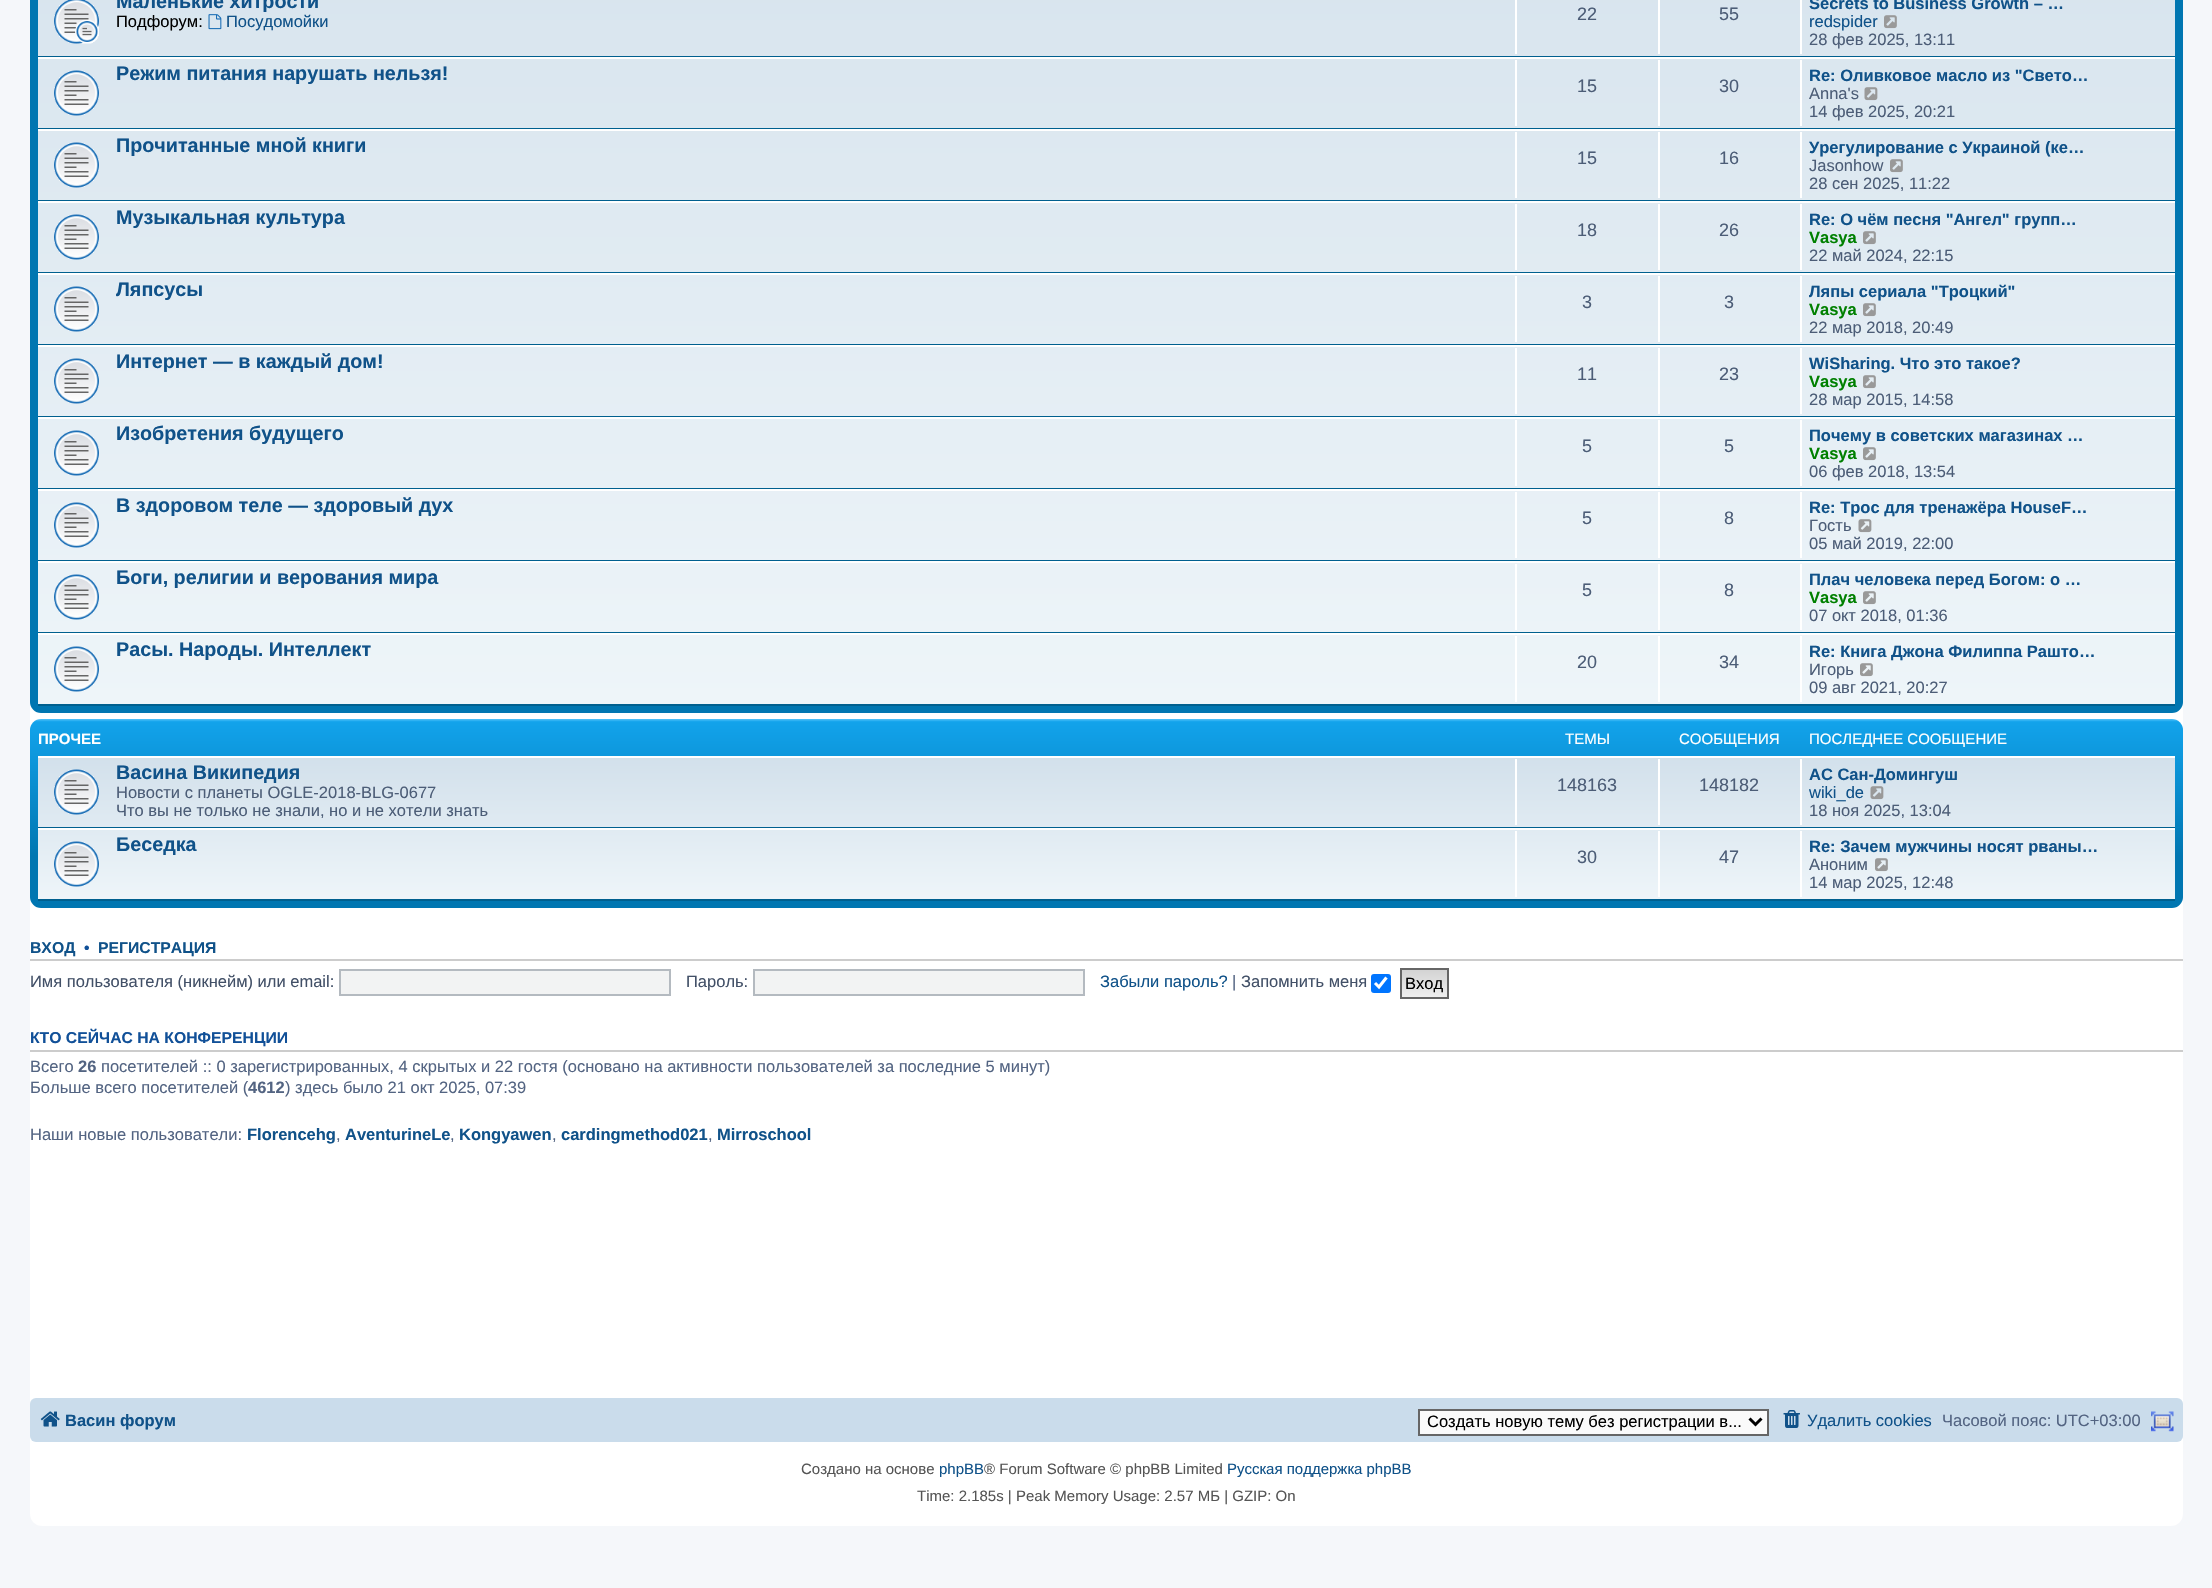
void draw(SkCanvas* canvas) {
    SkPaint paint;
    paint.setAntiAlias(true);
    auto face = [&](const char* family, int weight, float size, bool italic = false) {
        SkFontStyle style(weight, SkFontStyle::kNormal_Width,
            italic ? SkFontStyle::kItalic_Slant : SkFontStyle::kUpright_Slant);
        SkFont result(fontMgr->matchFamilyStyle(family, style), size);
        result.setSubpixel(true);
        return result;
    };
    auto write = [&](const char* s, float x, float y, const SkFont& font, SkColor color) {
        SkPaint ink(SkColor4f::FromColor(color));
        ink.setAntiAlias(true);
        canvas->drawString(s, x, y, font, ink);
    };
    auto block = [&](float x, float y, float w, float h, SkColor color) {
        SkPaint ink(SkColor4f::FromColor(color));
        ink.setAntiAlias(true);
        canvas->drawRect(SkRect::MakeXYWH(x, y, w, h), ink);
    };
    auto card = [&](float x, float y, float w, float h, float radius, SkColor color) {
        SkPaint ink(SkColor4f::FromColor(color));
        ink.setAntiAlias(true);
        canvas->drawRoundRect(SkRect::MakeXYWH(x, y, w, h), radius, radius, ink);
    };
    auto paste = [&](const char* path, float x, float y, float w, float h) {
        auto image = SkImages::DeferredFromEncodedData(SkData::MakeFromFileName(path));
        canvas->drawImageRect(image, SkRect::MakeXYWH(x, y, w, h), SkSamplingOptions());
    };
    canvas->clear(SkColorSetRGB(245, 247, 250));
    card(30, -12, 2153, 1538, 12, SK_ColorWHITE);
    {
        const SkColor colors[] = {SkColorSetRGB(106, 206, 255), SkColorSetRGB(18, 163, 235), SkColorSetRGB(0, 118, 177), SkColorSetRGB(0, 118, 177)};
        const float stops[] = {0, 0, 0.14f, 1};
        const SkPoint ends[] = {{1106, -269}, {1106, 713}};
        paint.setShader(SkGradientShader::MakeLinear(ends, colors, stops, 4, SkTileMode::kClamp));
        paint.setAlpha(255);
    }
    canvas->drawRoundRect(SkRect::MakeXYWH(30, -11, 2153, 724), 11, 11, paint);
    {
        const SkColor colors[] = {SkColorSetRGB(210, 224, 235), SkColorSetRGB(238, 245, 249)};
        const float stops[] = {0, 1};
        const SkPoint ends[] = {{1106, -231}, {1106, 705}};
        paint.setShader(SkGradientShader::MakeLinear(ends, colors, stops, 2, SkTileMode::kClamp));
        paint.setAlpha(255);
    }
    canvas->drawRect(SkRect::MakeXYWH(38, 0, 2137, 704), paint);
    block(38, 56, 2137, 1, SkColorSetRGB(0, 96, 143));
    paste("pic1.png", 54, 0, 45, 44);
    auto kFont1 = face("Liberation Sans", 700, 19.75f);
    write("Маленькие хитрости", 116, 8, kFont1, SkColorSetRGB(16, 82, 137));
    auto kFont2 = face("Liberation Sans", 400, 16.5f);
    write("Подфорум:", 116, 27, kFont2, SK_ColorBLACK);
    paste("pic2.png", 208, 14, 14, 16);
    write("Посудомойки", 226, 27, kFont2, SkColorSetRGB(16, 82, 137));
    block(1515, 0, 2, 54, SK_ColorWHITE);
    auto kFont3 = face("Liberation Sans", 400, 18);
    write("22", 1577, 20, kFont3, SkColorSetRGB(76, 93, 119));
    block(1658, 0, 2, 54, SK_ColorWHITE);
    write("55", 1719, 20, kFont3, SkColorSetRGB(76, 93, 119));
    block(1800, 0, 2, 54, SK_ColorWHITE);
    auto kFont4 = face("Liberation Sans", 700, 16.5f);
    write("Secrets to Business Growth – …", 1809, 9, kFont4, SkColorSetRGB(16, 82, 137));
    write("redspider", 1809, 27, kFont2, SkColorSetRGB(16, 82, 137));
    paste("pic3.png", 1884, 15, 13, 14);
    write("28 фев 2025, 13:11", 1809, 45, kFont2, SkColorSetRGB(76, 93, 119));
    block(38, 57, 2137, 2, SK_ColorWHITE);
    block(38, 128, 2137, 1, SkColorSetRGB(0, 96, 143));
    paste("pic4.png", 54, 70, 45, 46);
    write("Режим питания нарушать нельзя!", 116, 80, kFont1, SkColorSetRGB(16, 82, 137));
    block(1515, 60, 2, 66, SK_ColorWHITE);
    write("15", 1577, 92, kFont3, SkColorSetRGB(76, 93, 119));
    block(1658, 60, 2, 66, SK_ColorWHITE);
    write("30", 1719, 92, kFont3, SkColorSetRGB(76, 93, 119));
    block(1800, 60, 2, 66, SK_ColorWHITE);
    write("Re: Оливковое масло из \"Свето…", 1809, 81, kFont4, SkColorSetRGB(16, 82, 137));
    write("Anna's", 1809, 99, kFont2, SkColorSetRGB(76, 93, 119));
    paste("pic5.png", 1864, 87, 14, 14);
    write("14 фев 2025, 20:21", 1809, 117, kFont2, SkColorSetRGB(76, 93, 119));
    block(38, 129, 2137, 2, SK_ColorWHITE);
    block(38, 200, 2137, 1, SkColorSetRGB(0, 96, 143));
    paste("pic6.png", 54, 142, 45, 46);
    write("Прочитанные мной книги", 116, 152, kFont1, SkColorSetRGB(16, 82, 137));
    block(1515, 132, 2, 66, SK_ColorWHITE);
    write("15", 1577, 164, kFont3, SkColorSetRGB(76, 93, 119));
    block(1658, 132, 2, 66, SK_ColorWHITE);
    write("16", 1719, 164, kFont3, SkColorSetRGB(76, 93, 119));
    block(1800, 132, 2, 66, SK_ColorWHITE);
    write("Урегулирование с Украиной (ке…", 1809, 153, kFont4, SkColorSetRGB(16, 82, 137));
    write("Jasonhow", 1809, 171, kFont2, SkColorSetRGB(76, 93, 119));
    paste("pic7.png", 1890, 159, 13, 14);
    write("28 сен 2025, 11:22", 1809, 189, kFont2, SkColorSetRGB(76, 93, 119));
    block(38, 201, 2137, 2, SK_ColorWHITE);
    block(38, 272, 2137, 1, SkColorSetRGB(0, 96, 143));
    paste("pic8.png", 54, 214, 45, 46);
    write("Музыкальная культура", 116, 224, kFont1, SkColorSetRGB(16, 82, 137));
    block(1515, 204, 2, 66, SK_ColorWHITE);
    write("18", 1577, 236, kFont3, SkColorSetRGB(76, 93, 119));
    block(1658, 204, 2, 66, SK_ColorWHITE);
    write("26", 1719, 236, kFont3, SkColorSetRGB(76, 93, 119));
    block(1800, 204, 2, 66, SK_ColorWHITE);
    write("Re: О чём песня \"Ангел\" групп…", 1809, 225, kFont4, SkColorSetRGB(16, 82, 137));
    write("Vasya", 1809, 243, kFont4, SkColorSetRGB(0, 128, 0));
    paste("pic9.png", 1863, 231, 13, 14);
    write("22 май 2024, 22:15", 1809, 261, kFont2, SkColorSetRGB(76, 93, 119));
    block(38, 273, 2137, 2, SK_ColorWHITE);
    block(38, 344, 2137, 1, SkColorSetRGB(0, 96, 143));
    paste("pic10.png", 54, 286, 45, 46);
    write("Ляпсусы", 116, 296, kFont1, SkColorSetRGB(16, 82, 137));
    block(1515, 276, 2, 66, SK_ColorWHITE);
    write("3", 1582, 308, kFont3, SkColorSetRGB(76, 93, 119));
    block(1658, 276, 2, 66, SK_ColorWHITE);
    write("3", 1724, 308, kFont3, SkColorSetRGB(76, 93, 119));
    block(1800, 276, 2, 66, SK_ColorWHITE);
    write("Ляпы сериала \"Троцкий\"", 1809, 297, kFont4, SkColorSetRGB(16, 82, 137));
    write("Vasya", 1809, 315, kFont4, SkColorSetRGB(0, 128, 0));
    paste("pic11.png", 1863, 303, 13, 14);
    write("22 мар 2018, 20:49", 1809, 333, kFont2, SkColorSetRGB(76, 93, 119));
    block(38, 345, 2137, 2, SK_ColorWHITE);
    block(38, 416, 2137, 1, SkColorSetRGB(0, 96, 143));
    paste("pic12.png", 54, 358, 45, 46);
    write("Интернет — в каждый дом!", 116, 368, kFont1, SkColorSetRGB(16, 82, 137));
    block(1515, 348, 2, 66, SK_ColorWHITE);
    write("11", 1577, 380, kFont3, SkColorSetRGB(76, 93, 119));
    block(1658, 348, 2, 66, SK_ColorWHITE);
    write("23", 1719, 380, kFont3, SkColorSetRGB(76, 93, 119));
    block(1800, 348, 2, 66, SK_ColorWHITE);
    write("WiSharing. Что это такое?", 1809, 369, kFont4, SkColorSetRGB(16, 82, 137));
    write("Vasya", 1809, 387, kFont4, SkColorSetRGB(0, 128, 0));
    paste("pic13.png", 1863, 375, 13, 14);
    write("28 мар 2015, 14:58", 1809, 405, kFont2, SkColorSetRGB(76, 93, 119));
    block(38, 417, 2137, 2, SK_ColorWHITE);
    block(38, 488, 2137, 1, SkColorSetRGB(0, 96, 143));
    paste("pic14.png", 54, 430, 45, 46);
    write("Изобретения будущего", 116, 440, kFont1, SkColorSetRGB(16, 82, 137));
    block(1515, 420, 2, 66, SK_ColorWHITE);
    write("5", 1582, 452, kFont3, SkColorSetRGB(76, 93, 119));
    block(1658, 420, 2, 66, SK_ColorWHITE);
    write("5", 1724, 452, kFont3, SkColorSetRGB(76, 93, 119));
    block(1800, 420, 2, 66, SK_ColorWHITE);
    write("Почему в советских магазинах …", 1809, 441, kFont4, SkColorSetRGB(16, 82, 137));
    write("Vasya", 1809, 459, kFont4, SkColorSetRGB(0, 128, 0));
    paste("pic15.png", 1863, 447, 13, 14);
    write("06 фев 2018, 13:54", 1809, 477, kFont2, SkColorSetRGB(76, 93, 119));
    block(38, 489, 2137, 2, SK_ColorWHITE);
    block(38, 560, 2137, 1, SkColorSetRGB(0, 96, 143));
    paste("pic16.png", 54, 502, 45, 46);
    write("В здоровом теле — здоровый дух", 116, 512, kFont1, SkColorSetRGB(16, 82, 137));
    block(1515, 492, 2, 66, SK_ColorWHITE);
    write("5", 1582, 524, kFont3, SkColorSetRGB(76, 93, 119));
    block(1658, 492, 2, 66, SK_ColorWHITE);
    write("8", 1724, 524, kFont3, SkColorSetRGB(76, 93, 119));
    block(1800, 492, 2, 66, SK_ColorWHITE);
    write("Re: Трос для тренажёра HouseF…", 1809, 513, kFont4, SkColorSetRGB(16, 82, 137));
    write("Гость", 1809, 531, kFont2, SkColorSetRGB(76, 93, 119));
    paste("pic17.png", 1858, 519, 14, 14);
    write("05 май 2019, 22:00", 1809, 549, kFont2, SkColorSetRGB(76, 93, 119));
    block(38, 561, 2137, 2, SK_ColorWHITE);
    block(38, 632, 2137, 1, SkColorSetRGB(0, 96, 143));
    paste("pic18.png", 54, 574, 45, 46);
    write("Боги, религии и верования мира", 116, 584, kFont1, SkColorSetRGB(16, 82, 137));
    block(1515, 564, 2, 66, SK_ColorWHITE);
    write("5", 1582, 596, kFont3, SkColorSetRGB(76, 93, 119));
    block(1658, 564, 2, 66, SK_ColorWHITE);
    write("8", 1724, 596, kFont3, SkColorSetRGB(76, 93, 119));
    block(1800, 564, 2, 66, SK_ColorWHITE);
    write("Плач человека перед Богом: о …", 1809, 585, kFont4, SkColorSetRGB(16, 82, 137));
    write("Vasya", 1809, 603, kFont4, SkColorSetRGB(0, 128, 0));
    paste("pic19.png", 1863, 591, 13, 14);
    write("07 окт 2018, 01:36", 1809, 621, kFont2, SkColorSetRGB(76, 93, 119));
    block(38, 633, 2137, 2, SK_ColorWHITE);
    block(38, 704, 2137, 2, SkColorSetRGB(0, 96, 143));
    paste("pic20.png", 54, 646, 45, 46);
    write("Расы. Народы. Интеллект", 116, 656, kFont1, SkColorSetRGB(16, 82, 137));
    block(1515, 636, 2, 66, SK_ColorWHITE);
    write("20", 1577, 668, kFont3, SkColorSetRGB(76, 93, 119));
    block(1658, 636, 2, 66, SK_ColorWHITE);
    write("34", 1719, 668, kFont3, SkColorSetRGB(76, 93, 119));
    block(1800, 636, 2, 66, SK_ColorWHITE);
    write("Re: Книга Джона Филиппа Рашто…", 1809, 657, kFont4, SkColorSetRGB(16, 82, 137));
    write("Игорь", 1809, 675, kFont2, SkColorSetRGB(76, 93, 119));
    paste("pic21.png", 1860, 663, 13, 14);
    write("09 авг 2021, 20:27", 1809, 693, kFont2, SkColorSetRGB(76, 93, 119));
    {
        const SkColor colors[] = {SkColorSetRGB(106, 206, 255), SkColorSetRGB(18, 163, 235), SkColorSetRGB(0, 118, 177), SkColorSetRGB(0, 118, 177)};
        const float stops[] = {0, 0.02f, 0.73f, 1};
        const SkPoint ends[] = {{1106, 718}, {1106, 908}};
        paint.setShader(SkGradientShader::MakeLinear(ends, colors, stops, 4, SkTileMode::kClamp));
        paint.setAlpha(255);
    }
    canvas->drawRoundRect(SkRect::MakeXYWH(30, 719, 2153, 189), 11, 11, paint);
    auto kFont5 = face("Liberation Sans", 700, 15);
    write("ПРОЧЕЕ", 38, 744, kFont5, SK_ColorWHITE);
    auto kFont6 = face("Liberation Sans", 400, 15);
    write("ТЕМЫ", 1565, 744, kFont6, SK_ColorWHITE);
    write("СООБЩЕНИЯ", 1679, 744, kFont6, SK_ColorWHITE);
    write("ПОСЛЕДНЕЕ СООБЩЕНИЕ", 1809, 744, kFont6, SK_ColorWHITE);
    {
        const SkColor colors[] = {SkColorSetRGB(210, 224, 235), SkColorSetRGB(238, 245, 249)};
        const float stops[] = {0, 1};
        const SkPoint ends[] = {{1106, 756}, {1106, 900}};
        paint.setShader(SkGradientShader::MakeLinear(ends, colors, stops, 2, SkTileMode::kClamp));
        paint.setAlpha(255);
    }
    canvas->drawRect(SkRect::MakeXYWH(38, 758, 2137, 141), paint);
    block(38, 756, 2137, 2, SK_ColorWHITE);
    block(38, 827, 2137, 1, SkColorSetRGB(0, 96, 143));
    paste("pic22.png", 54, 769, 45, 46);
    write("Васина Википедия", 116, 779, kFont1, SkColorSetRGB(16, 82, 137));
    write("Новости с планеты OGLE-2018-BLG-0677", 116, 798, kFont2, SkColorSetRGB(76, 93, 119));
    write("Что вы не только не знали, но и не хотели знать", 116, 816, kFont2, SkColorSetRGB(76, 93, 119));
    block(1515, 759, 2, 66, SK_ColorWHITE);
    write("148163", 1557, 791, kFont3, SkColorSetRGB(76, 93, 119));
    block(1658, 759, 2, 66, SK_ColorWHITE);
    write("148182", 1699, 791, kFont3, SkColorSetRGB(76, 93, 119));
    block(1800, 759, 2, 66, SK_ColorWHITE);
    write("АС Сан-Домингуш", 1809, 780, kFont4, SkColorSetRGB(16, 82, 137));
    write("wiki_de", 1809, 798, kFont2, SkColorSetRGB(16, 82, 137));
    paste("pic23.png", 1870, 786, 14, 14);
    write("18 ноя 2025, 13:04", 1809, 816, kFont2, SkColorSetRGB(76, 93, 119));
    block(38, 828, 2137, 2, SK_ColorWHITE);
    block(38, 899, 2137, 2, SkColorSetRGB(0, 96, 143));
    paste("pic24.png", 54, 841, 45, 46);
    write("Беседка", 116, 851, kFont1, SkColorSetRGB(16, 82, 137));
    block(1515, 831, 2, 66, SK_ColorWHITE);
    write("30", 1577, 863, kFont3, SkColorSetRGB(76, 93, 119));
    block(1658, 831, 2, 66, SK_ColorWHITE);
    write("47", 1719, 863, kFont3, SkColorSetRGB(76, 93, 119));
    block(1800, 831, 2, 66, SK_ColorWHITE);
    write("Re: Зачем мужчины носят рваны…", 1809, 852, kFont4, SkColorSetRGB(16, 82, 137));
    write("Аноним", 1809, 870, kFont2, SkColorSetRGB(76, 93, 119));
    paste("pic25.png", 1875, 858, 13, 14);
    write("14 мар 2025, 12:48", 1809, 888, kFont2, SkColorSetRGB(76, 93, 119));
    block(30, 959, 2153, 2, SkColorSetRGB(204, 204, 204));
    auto kFont7 = face("Liberation Sans", 700, 15.75f);
    write("ВХОД", 30, 953, kFont7, SkColorSetRGB(16, 82, 137));
    write("•", 84, 953, kFont7, SkColorSetRGB(17, 80, 152));
    write("РЕГИСТРАЦИЯ", 98, 953, kFont7, SkColorSetRGB(16, 82, 137));
    write("Имя пользователя (никнейм) или email:", 30, 987, kFont2, SkColorSetRGB(66, 80, 103));
    paint.setShader(nullptr);
    paint.setColor(SkColorSetRGB(242, 243, 243));
    canvas->drawRect(SkRect::MakeXYWH(340, 970, 330, 25), paint);
    paint.setStyle(SkPaint::kStroke_Style);
    paint.setStrokeWidth(2);
    paint.setColor(SkColorSetRGB(180, 186, 192));
    canvas->drawRect(SkRect::MakeXYWH(340, 970, 330, 25), paint);
    write("Пароль:", 686, 987, kFont2, SkColorSetRGB(66, 80, 103));
    paint.setStyle(SkPaint::kFill_Style);
    paint.setColor(SkColorSetRGB(242, 243, 243));
    canvas->drawRect(SkRect::MakeXYWH(754, 970, 330, 25), paint);
    paint.setStyle(SkPaint::kStroke_Style);
    paint.setColor(SkColorSetRGB(180, 186, 192));
    canvas->drawRect(SkRect::MakeXYWH(754, 970, 330, 25), paint);
    write("Забыли пароль?", 1100, 987, kFont2, SkColorSetRGB(16, 82, 137));
    write("|", 1232, 987, kFont2, SkColorSetRGB(83, 100, 130));
    write("Запомнить меня", 1241, 987, kFont2, SkColorSetRGB(66, 80, 103));
    card(1371, 974, 20, 19, 3, SkColorSetRGB(0, 117, 255));
    paint.setStrokeWidth(3.1f);
    paint.setColor(SK_ColorWHITE);
    canvas->drawPath(SkPathBuilder().moveTo(1375, 983).lineTo(1379, 987).lineTo(1386.5f, 977.5f).detach(), paint);
    paint.setStyle(SkPaint::kFill_Style);
    {
        const SkColor colors[] = {SkColorSetRGB(210, 210, 210), SkColorSetRGB(239, 239, 239)};
        const float stops[] = {0, 1};
        const SkPoint ends[] = {{1424, 969}, {1424, 998}};
        paint.setShader(SkGradientShader::MakeLinear(ends, colors, stops, 2, SkTileMode::kClamp));
        paint.setAlpha(255);
    }
    canvas->drawRect(SkRect::MakeXYWH(1402, 970, 45, 27), paint);
    paint.setStyle(SkPaint::kStroke_Style);
    paint.setStrokeWidth(2);
    paint.setShader(nullptr);
    paint.setColor(SkColorSetRGB(102, 102, 102));
    canvas->drawRect(SkRect::MakeXYWH(1401, 969, 47, 29), paint);
    write("Вход", 1405, 989, kFont2, SK_ColorBLACK);
    block(30, 1050, 2153, 2, SkColorSetRGB(204, 204, 204));
    write("КТО СЕЙЧАС НА КОНФЕРЕНЦИИ", 30, 1043, kFont7, SkColorSetRGB(17, 80, 152));
    write("Всего", 30, 1072, kFont2, SkColorSetRGB(83, 100, 130));
    write("26", 78, 1072, kFont4, SkColorSetRGB(83, 100, 130));
    write("посетителей :: 0 зарегистрированных, 4 скрытых и 22 гостя (основано на активности пользователей за последние 5 минут)", 101, 1072, kFont2, SkColorSetRGB(83, 100, 130));
    write("Больше всего посетителей (", 30, 1093, kFont2, SkColorSetRGB(83, 100, 130));
    write("4612", 248, 1093, kFont4, SkColorSetRGB(83, 100, 130));
    write(") здесь было 21 окт 2025, 07:39", 285, 1093, kFont2, SkColorSetRGB(83, 100, 130));
    write("Наши новые пользователи:", 30, 1140, kFont2, SkColorSetRGB(83, 100, 130));
    write("Florencehg", 247, 1140, kFont4, SkColorSetRGB(16, 82, 137));
    write(",", 336, 1140, kFont2, SkColorSetRGB(83, 100, 130));
    write("AventurineLe", 345, 1140, kFont4, SkColorSetRGB(16, 82, 137));
    write(",", 450, 1140, kFont2, SkColorSetRGB(83, 100, 130));
    write("Kongyawen", 459, 1140, kFont4, SkColorSetRGB(16, 82, 137));
    write(",", 552, 1140, kFont2, SkColorSetRGB(83, 100, 130));
    write("cardingmethod021", 561, 1140, kFont4, SkColorSetRGB(16, 82, 137));
    write(",", 708, 1140, kFont2, SkColorSetRGB(83, 100, 130));
    write("Mirroschool", 717, 1140, kFont4, SkColorSetRGB(16, 82, 137));
    card(30, 1398, 2153, 44, 6, SkColorSetRGB(202, 220, 235));
    paste("pic26.png", 40, 1411, 20, 16);
    write("Васин форум", 65, 1426, kFont4, SkColorSetRGB(16, 82, 137));
    paint.setStyle(SkPaint::kFill_Style);
    paint.setColor(SkColorSetRGB(250, 250, 250));
    canvas->drawRect(SkRect::MakeXYWH(1419, 1410, 349, 25), paint);
    paint.setStyle(SkPaint::kStroke_Style);
    paint.setColor(SkColorSetRGB(102, 102, 102));
    canvas->drawRect(SkRect::MakeXYWH(1419, 1410, 349, 25), paint);
    paint.setStrokeWidth(3);
    paint.setColor(SK_ColorBLACK);
    canvas->drawPath(SkPathBuilder().moveTo(1749.5f, 1418.5f).lineTo(1755.5f, 1424.5f).lineTo(1761.5f, 1418.5f).detach(), paint);
    write("Создать новую тему без регистрации в...", 1427, 1427, kFont2, SK_ColorBLACK);
    paste("pic27.png", 1783, 1410, 17, 18);
    write("Удалить cookies", 1807, 1426, kFont2, SkColorSetRGB(16, 82, 137));
    write("Часовой пояс: UTC+03:00", 1942, 1426, kFont2, SkColorSetRGB(83, 100, 130));
    paste("pic28.png", 2151, 1411, 23, 21);
    write("Создано на основе", 801, 1474, kFont6, SkColorSetRGB(85, 85, 85));
    write("phpBB", 939, 1474, kFont6, SkColorSetRGB(16, 82, 137));
    write("® Forum Software © phpBB Limited", 984, 1474, kFont6, SkColorSetRGB(85, 85, 85));
    write("Русская поддержка phpBB", 1227, 1474, kFont6, SkColorSetRGB(16, 82, 137));
    write("Time: 2.185s | Peak Memory Usage: 2.57 МБ | GZIP: On", 917, 1501, kFont6, SkColorSetRGB(85, 85, 85));
}
